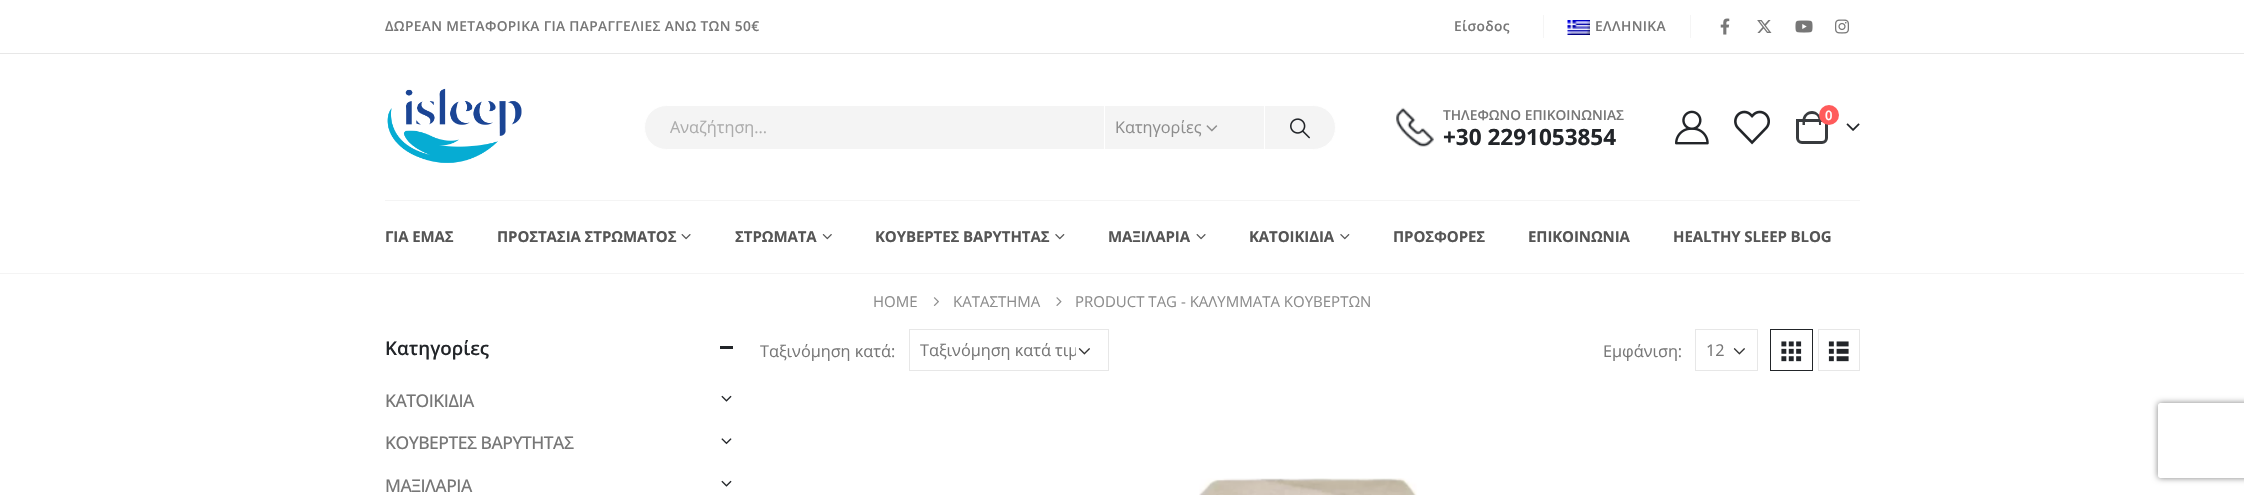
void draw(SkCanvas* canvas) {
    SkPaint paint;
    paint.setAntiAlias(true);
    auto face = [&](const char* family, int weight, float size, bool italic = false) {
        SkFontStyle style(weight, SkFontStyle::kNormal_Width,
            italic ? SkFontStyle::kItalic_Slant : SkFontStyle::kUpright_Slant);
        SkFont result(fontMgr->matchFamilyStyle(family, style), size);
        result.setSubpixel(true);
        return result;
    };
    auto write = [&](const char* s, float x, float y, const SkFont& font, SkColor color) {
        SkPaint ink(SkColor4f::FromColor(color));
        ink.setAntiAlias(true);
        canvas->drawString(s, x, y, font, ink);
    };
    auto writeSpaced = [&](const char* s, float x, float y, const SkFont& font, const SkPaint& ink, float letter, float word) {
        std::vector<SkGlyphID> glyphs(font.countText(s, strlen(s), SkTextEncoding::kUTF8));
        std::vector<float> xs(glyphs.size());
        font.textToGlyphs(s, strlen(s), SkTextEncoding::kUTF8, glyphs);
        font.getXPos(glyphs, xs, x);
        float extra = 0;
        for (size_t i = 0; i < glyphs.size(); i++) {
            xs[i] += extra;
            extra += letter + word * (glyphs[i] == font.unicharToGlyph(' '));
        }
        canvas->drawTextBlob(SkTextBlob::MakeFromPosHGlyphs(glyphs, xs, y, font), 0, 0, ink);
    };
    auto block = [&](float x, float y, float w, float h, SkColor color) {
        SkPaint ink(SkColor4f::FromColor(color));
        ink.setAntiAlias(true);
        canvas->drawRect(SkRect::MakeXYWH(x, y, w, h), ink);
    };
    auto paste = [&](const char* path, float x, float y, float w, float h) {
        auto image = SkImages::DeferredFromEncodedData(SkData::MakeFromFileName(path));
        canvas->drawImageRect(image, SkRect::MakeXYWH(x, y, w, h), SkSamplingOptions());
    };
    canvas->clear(SK_ColorWHITE);
    block(0, 273, 2244, 1, SkColorSetRGB(244, 244, 244));
    auto kFont1 = face("Open Sans", 600, 13.75f);
    paint.setColor(SkColorSetRGB(119, 119, 119));
    writeSpaced("ΔΩΡΕΑΝ ΜΕΤΑΦΟΡΙΚΑ ΓΙΑ ΠΑΡΑΓΓΕΛΙΕΣ ΑΝΩ ΤΩΝ 50€", 385, 31, kFont1, paint, 0.35f, 0);
    writeSpaced("Είσοδος", 1454, 31, kFont1, paint, 0.35f, 0);
    block(1543, 15, 1, 23, SkColorSetRGB(245, 245, 245));
    paste("pic1.png", 1567, 20, 23, 15);
    writeSpaced("ΕΛΛΗΝΙΚΑ", 1595, 31, kFont1, paint, 0.35f, 0);
    block(1690, 15, 1, 23, SkColorSetRGB(245, 245, 245));
    paste("pic2.png", 1720, 18, 10, 17);
    paste("pic3.png", 1757, 20, 15, 13);
    paste("pic4.png", 1795, 20, 18, 13);
    paste("pic5.png", 1835, 19, 14, 15);
    block(0, 53, 2244, 1, SkColorSetRGB(231, 231, 231));
    paste("pic6.png", 387, 88, 135, 75);
    paste("pic7.png", 1396, 107, 38, 40);
    write("ΤΗΛΕΦΩΝΟ ΕΠΙΚΟΙΝΩΝΙΑΣ", 1443, 120, kFont1, SkColorSetRGB(119, 119, 119));
    auto kFont2 = face("Open Sans", 700, 22.5f);
    write("+30 2291053854", 1443, 145, kFont2, SkColorSetRGB(34, 37, 41));
    paste("pic8.png", 1675, 110, 34, 35);
    paste("pic9.png", 1734, 110, 36, 35);
    paint.setStyle(SkPaint::kStroke_Style);
    paint.setStrokeWidth(3);
    paint.setColor(SkColorSetRGB(56, 59, 62));
    canvas->drawPath(SkPathBuilder().moveTo(1797.5f, 120.5f).lineTo(1826.5f, 120.5f).lineTo(1826.5f, 138).cubicTo(1826.5f, 140.5f, 1824.5f, 142.5f, 1822, 142.5f).lineTo(1802, 142.5f).cubicTo(1799.5f, 142.5f, 1797.5f, 140.5f, 1797.5f, 138).close().detach(), paint);
    paint.setStyle(SkPaint::kFill_Style);
    canvas->drawPath(SkPathBuilder(SkPathFillType::kEvenOdd).moveTo(1812, 111).cubicTo(1817, 111, 1821, 115.5f, 1821, 120.5f).lineTo(1821, 125).lineTo(1802.5f, 125).lineTo(1802.5f, 120.5f).cubicTo(1802.5f, 115.5f, 1806.5f, 111, 1812, 111).close().moveTo(1812, 114).cubicTo(1819, 114, 1819, 120, 1819, 125).lineTo(1805, 125).cubicTo(1805, 120, 1805, 114, 1812, 114).close().detach(), paint);
    paint.setColor(SkColorSetRGB(255, 91, 91));
    canvas->drawCircle(1829, 115, 10, paint);
    auto kFont3 = face("Open Sans", 600, 13);
    write("0", 1825, 120, kFont3, SK_ColorWHITE);
    paste("pic10.png", 1846, 123, 14, 8);
    paint.setColor(SkColorSetRGB(244, 244, 244));
    canvas->drawRoundRect(SkRect::MakeXYWH(644.5f, 105.5f, 691, 44), 22, 22, paint);
    paint.setStyle(SkPaint::kStroke_Style);
    paint.setStrokeWidth(1);
    paint.setColor(SK_ColorWHITE);
    canvas->drawRoundRect(SkRect::MakeXYWH(644.5f, 105.5f, 691, 44), 22, 22, paint);
    auto kFont4 = face("Open Sans", 400, 16.25f);
    write("Αναζήτηση...", 670, 133, kFont4, SkColorSetRGB(172, 172, 172));
    block(1264, 106, 1, 43, SK_ColorWHITE);
    block(1104, 106, 1, 43, SK_ColorWHITE);
    write("Κατηγορίες", 1115, 133, kFont4, SkColorSetRGB(141, 141, 141));
    paste("pic11.png", 1206, 125, 12, 7);
    paste("pic12.png", 1290, 118, 20, 21);
    block(385, 200, 1475, 1, SkColorSetRGB(244, 244, 244));
    auto kFont5 = face("Open Sans", 700, 15);
    paint.setStyle(SkPaint::kFill_Style);
    paint.setColor(SkColorSetRGB(85, 85, 85));
    writeSpaced("ΓΙΑ ΕΜΑΣ", 385, 242, kFont5, paint, -0.1f, 0);
    writeSpaced("ΠΡΟΣΤΑΣΙΑ ΣΤΡΩΜΑΤΟΣ", 497, 242, kFont5, paint, -0.1f, 0);
    paste("pic13.png", 681, 234, 10, 6);
    writeSpaced("ΣΤΡΩΜΑΤΑ", 735, 242, kFont5, paint, -0.1f, 0);
    paste("pic14.png", 822, 234, 10, 6);
    writeSpaced("ΚΟΥΒΕΡΤΕΣ ΒΑΡΥΤΗΤΑΣ", 875, 242, kFont5, paint, -0.1f, 0);
    paste("pic15.png", 1055, 234, 10, 6);
    writeSpaced("ΜΑΞΙΛΑΡΙΑ", 1108, 242, kFont5, paint, -0.1f, 0);
    paste("pic13.png", 1196, 234, 10, 6);
    writeSpaced("ΚΑΤΟΙΚΙΔΙΑ", 1249, 242, kFont5, paint, -0.1f, 0);
    paste("pic15.png", 1340, 234, 10, 6);
    writeSpaced("ΠΡΟΣΦΟΡΕΣ", 1393, 242, kFont5, paint, -0.1f, 0);
    writeSpaced("ΕΠΙΚΟΙΝΩΝΙΑ", 1528, 242, kFont5, paint, -0.1f, 0);
    writeSpaced("HEALTHY SLEEP BLOG", 1673, 242, kFont5, paint, -0.1f, 0);
    auto kFont6 = face("Open Sans", 400, 15);
    write("HOME", 873, 307, kFont6, SkColorSetRGB(141, 141, 141));
    paste("pic16.png", 933, 297, 6, 9);
    write("ΚΑΤΑΣΤΗΜΑ", 953, 307, kFont6, SkColorSetRGB(141, 141, 141));
    paste("pic17.png", 1056, 297, 6, 9);
    write("PRODUCT TAG - ΚΑΛΥΜΜΑΤΑ ΚΟΥΒΕΡΤΩΝ", 1075, 307, kFont6, SkColorSetRGB(141, 141, 141));
    auto kFont7 = face("Open Sans", 600, 18.75f);
    write("Κατηγορίες", 385, 355, kFont7, SkColorSetRGB(34, 37, 41));
    block(720, 346, 13, 3, SkColorSetRGB(34, 37, 41));
    auto kFont8 = face("Open Sans", 500, 17.5f);
    paint.setColor(SkColorSetRGB(119, 119, 119));
    writeSpaced("ΚΑΤΟΙΚΙΔΙΑ", 385, 407, kFont8, paint, -0.5f, 0);
    paste("pic18.png", 721, 395, 11, 7);
    writeSpaced("ΚΟΥΒΕΡΤΕΣ ΒΑΡΥΤΗΤΑΣ", 385, 449, kFont8, paint, -0.5f, 0);
    paste("pic19.png", 721, 438, 11, 7);
    writeSpaced("ΜΑΞΙΛΑΡΙΑ", 385, 492, kFont8, paint, -0.5f, 0);
    paste("pic18.png", 721, 480, 11, 7);
    write("Ταξινόμηση κατά:", 760, 357, kFont4, SkColorSetRGB(119, 119, 119));
    paste("pic20.png", 1078, 348, 12, 7);
    paint.setStyle(SkPaint::kStroke_Style);
    paint.setColor(SkColorSetRGB(231, 231, 231));
    canvas->drawRect(SkRect::MakeXYWH(909.5f, 329.5f, 199, 41), paint);
    canvas->save();
    canvas->clipRect(SkRect::MakeXYWH(920, 339, 156, 24));
    write("Ταξινόμηση κατά τιμ", 920, 356, kFont4, SkColorSetRGB(119, 119, 119));
    canvas->restore();
    write("Εμφάνιση:", 1603, 357, kFont4, SkColorSetRGB(119, 119, 119));
    paste("pic20.png", 1733, 348, 12, 7);
    canvas->drawRect(SkRect::MakeXYWH(1695.5f, 329.5f, 62, 41), paint);
    write("12", 1706, 356, kFont4, SkColorSetRGB(119, 119, 119));
    paint.setColor(SkColorSetRGB(34, 37, 41));
    canvas->drawRect(SkRect::MakeXYWH(1770.5f, 329.5f, 42, 41), paint);
    paste("pic21.png", 1781, 341, 21, 21);
    paint.setColor(SkColorSetRGB(231, 231, 231));
    canvas->drawRect(SkRect::MakeXYWH(1818.5f, 329.5f, 41, 41), paint);
    paste("pic22.png", 1828, 341, 21, 21);
    paste("pic23.png", 1199, 478, 218, 17);
    canvas->save();
    canvas->clipPath(SkPathBuilder(SkPathFillType::kEvenOdd).moveTo(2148, 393).lineTo(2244, 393).lineTo(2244, 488).lineTo(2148, 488).close().moveTo(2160.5f, 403).lineTo(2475.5f, 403).cubicTo(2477, 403, 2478, 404, 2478, 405.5f).lineTo(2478, 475.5f).cubicTo(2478, 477, 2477, 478, 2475.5f, 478).lineTo(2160.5f, 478).cubicTo(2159, 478, 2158, 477, 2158, 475.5f).lineTo(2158, 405.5f).cubicTo(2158, 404, 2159, 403, 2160.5f, 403).close().detach(), true);
    paint.setStyle(SkPaint::kFill_Style);
    paint.setColor(SkColorSetRGB(128, 128, 128));
    paint.setMaskFilter(SkMaskFilter::MakeBlur(kNormal_SkBlurStyle, 3));
    canvas->drawRoundRect(SkRect::MakeXYWH(2158, 403, 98, 75), 2.5f, 2.5f, paint);
    paint.setMaskFilter(nullptr);
    canvas->restore();
}
